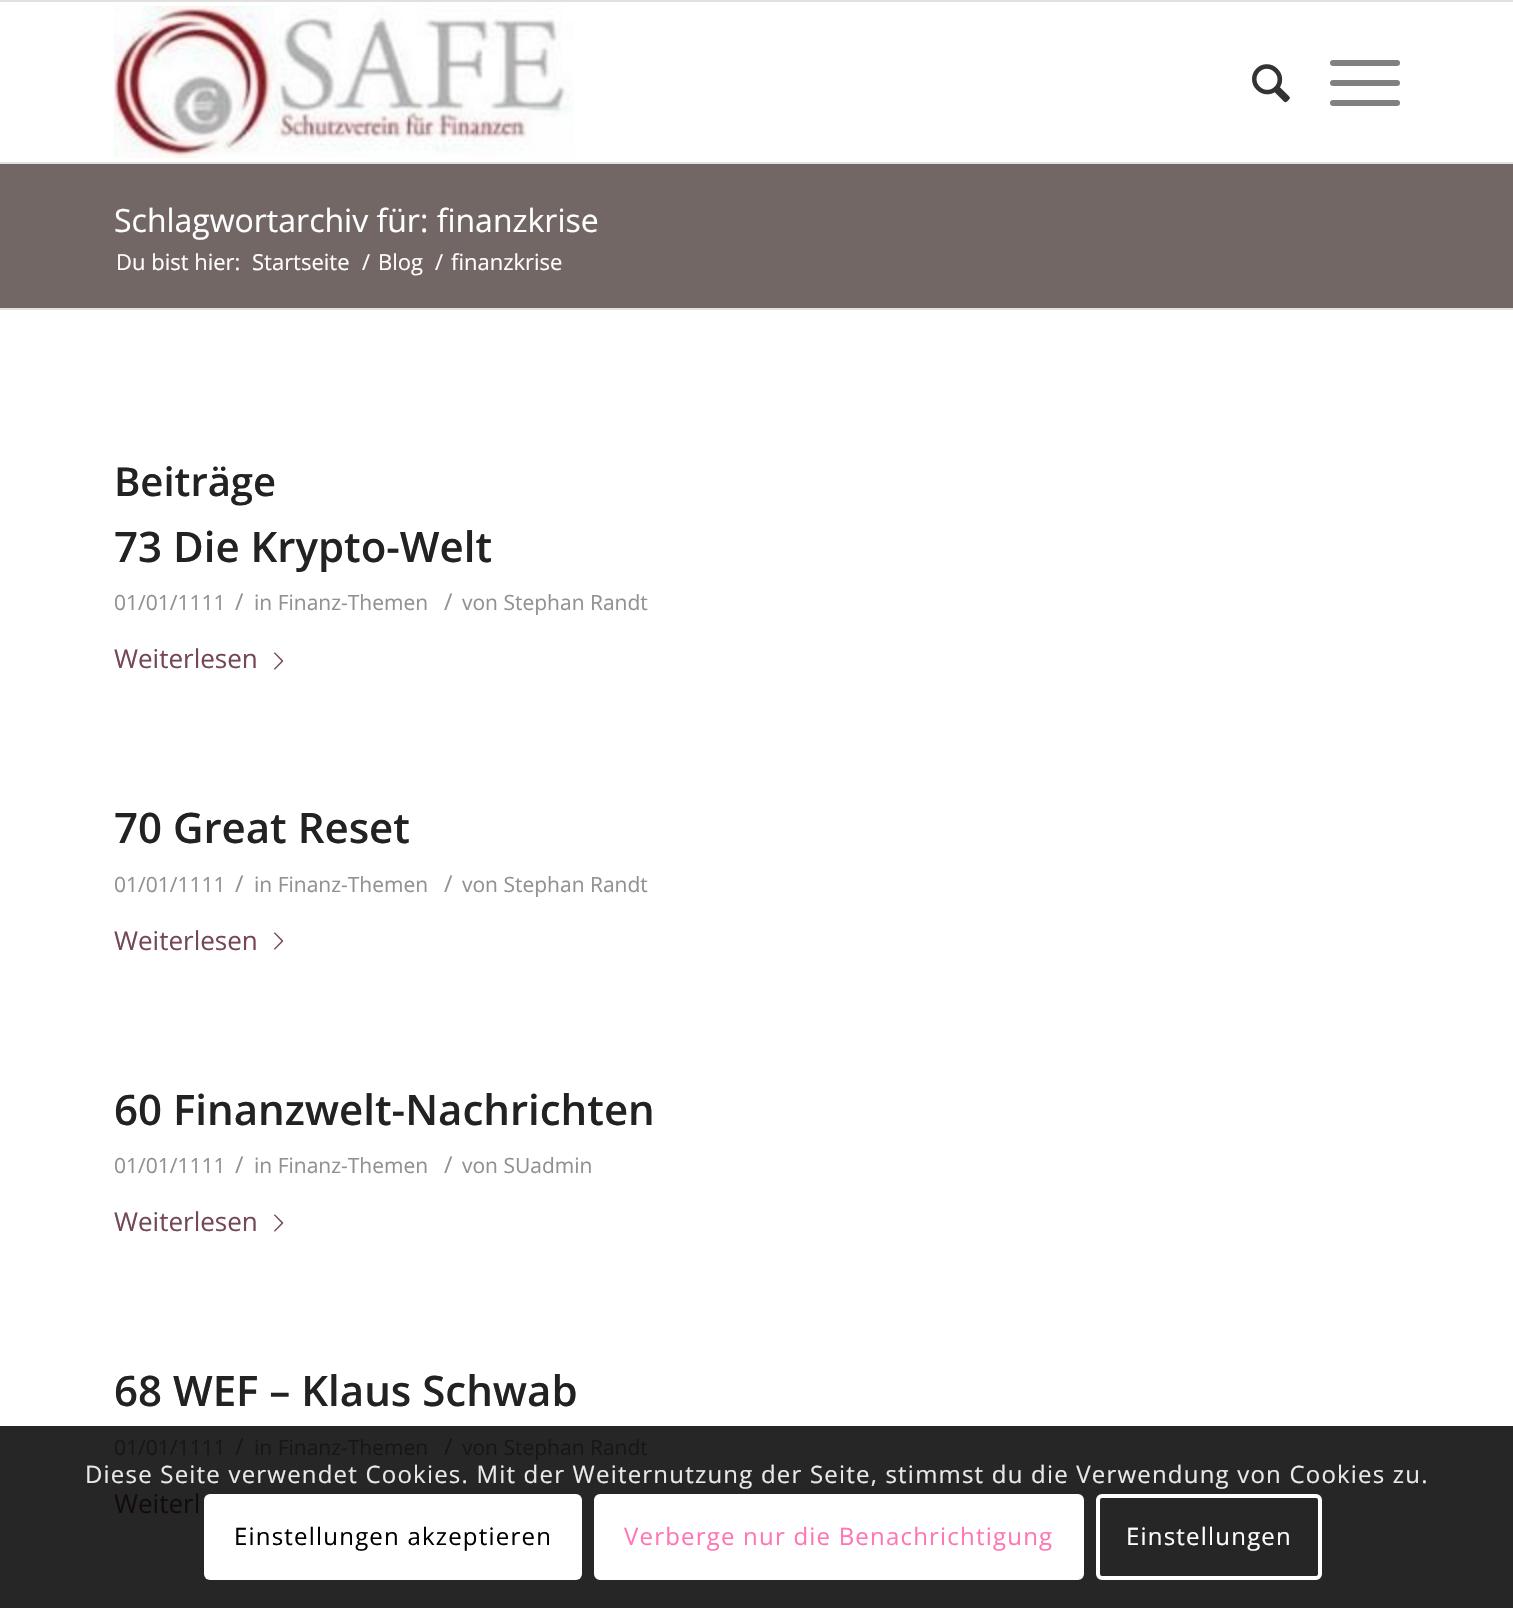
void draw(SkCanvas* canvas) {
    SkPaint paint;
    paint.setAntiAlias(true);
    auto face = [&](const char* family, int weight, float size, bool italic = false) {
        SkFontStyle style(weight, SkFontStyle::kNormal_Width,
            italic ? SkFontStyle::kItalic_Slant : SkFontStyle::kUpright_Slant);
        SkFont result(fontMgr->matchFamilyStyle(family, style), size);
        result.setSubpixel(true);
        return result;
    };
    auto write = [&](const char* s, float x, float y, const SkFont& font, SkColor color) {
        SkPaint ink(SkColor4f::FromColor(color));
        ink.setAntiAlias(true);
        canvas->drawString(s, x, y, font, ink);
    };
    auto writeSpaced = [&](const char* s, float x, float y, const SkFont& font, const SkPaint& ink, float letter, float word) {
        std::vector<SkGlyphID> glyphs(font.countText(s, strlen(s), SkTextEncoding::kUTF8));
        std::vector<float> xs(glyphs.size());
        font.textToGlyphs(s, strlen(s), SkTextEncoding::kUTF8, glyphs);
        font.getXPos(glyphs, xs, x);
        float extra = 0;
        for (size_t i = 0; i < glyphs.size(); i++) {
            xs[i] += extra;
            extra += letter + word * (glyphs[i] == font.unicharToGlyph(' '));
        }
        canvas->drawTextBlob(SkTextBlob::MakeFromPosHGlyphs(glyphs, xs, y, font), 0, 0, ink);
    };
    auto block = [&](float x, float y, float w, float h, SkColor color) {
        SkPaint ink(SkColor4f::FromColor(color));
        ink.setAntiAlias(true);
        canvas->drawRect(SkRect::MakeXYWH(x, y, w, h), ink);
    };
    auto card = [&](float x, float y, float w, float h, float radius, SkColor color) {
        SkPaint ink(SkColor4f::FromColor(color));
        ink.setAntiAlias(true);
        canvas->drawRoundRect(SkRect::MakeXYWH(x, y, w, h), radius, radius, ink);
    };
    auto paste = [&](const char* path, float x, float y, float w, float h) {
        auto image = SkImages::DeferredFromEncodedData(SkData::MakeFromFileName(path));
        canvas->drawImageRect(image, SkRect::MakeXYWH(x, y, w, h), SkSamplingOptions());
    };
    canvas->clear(SK_ColorWHITE);
    block(0, 0, 1513, 2, SkColorSetRGB(225, 225, 225));
    block(0, 162, 1513, 2, SkColorSetRGB(225, 225, 225));
    paste("pic1.png", 114, 6, 460, 152);
    paste("pic2.png", 1252, 64, 38, 39);
    card(1330, 80, 70, 6, 3, SkColorSetRGB(128, 128, 128));
    card(1330, 60, 70, 6, 3, SkColorSetRGB(128, 128, 128));
    card(1330, 100, 70, 6, 3, SkColorSetRGB(128, 128, 128));
    block(0, 1426, 1513, 182, SkColorSetRGB(38, 38, 38));
    block(0, 164, 1513, 144, SkColorSetRGB(115, 103, 102));
    auto kFont1 = face("Open Sans", 400, 32);
    write("Schlagwortarchiv für: finanzkrise", 114, 232, kFont1, SK_ColorWHITE);
    auto kFont2 = face("Open Sans", 400, 22);
    write("Du bist hier:", 116, 270, kFont2, SK_ColorWHITE);
    write("Startseite", 252, 270, kFont2, SK_ColorWHITE);
    write("/", 362, 270, kFont2, SK_ColorWHITE);
    write("Blog", 378, 270, kFont2, SK_ColorWHITE);
    write("/", 435, 270, kFont2, SK_ColorWHITE);
    write("finanzkrise", 451, 270, kFont2, SK_ColorWHITE);
    block(0, 308, 1513, 2, SkColorSetRGB(225, 225, 225));
    auto kFont3 = face("Open Sans", 600, 40);
    write("Beiträge", 114, 496, kFont3, SkColorSetRGB(34, 34, 34));
    auto kFont4 = face("Open Sans", 600, 42);
    write("73 Die Krypto-Welt", 114, 562, kFont4, SkColorSetRGB(34, 34, 34));
    auto kFont5 = face("Open Sans", 400, 21);
    write("01/01/1111", 114, 610, kFont5, SkColorSetRGB(145, 145, 145));
    auto kFont6 = face("Open Sans", 400, 23);
    write("/", 235, 610, kFont6, SkColorSetRGB(145, 145, 145));
    write("in Finanz-Themen", 254, 610, kFont5, SkColorSetRGB(145, 145, 145));
    write("/", 444, 610, kFont6, SkColorSetRGB(145, 145, 145));
    write("von Stephan Randt", 462, 610, kFont5, SkColorSetRGB(145, 145, 145));
    auto kFont7 = face("Open Sans", 400, 26);
    write("Weiterlesen", 114, 668, kFont7, SkColorSetRGB(115, 72, 84));
    paste("pic3.png", 274, 652, 10, 18);
    write("70 Great Reset", 114, 843, kFont4, SkColorSetRGB(34, 34, 34));
    write("01/01/1111", 114, 892, kFont5, SkColorSetRGB(145, 145, 145));
    write("/", 235, 892, kFont6, SkColorSetRGB(145, 145, 145));
    write("in Finanz-Themen", 254, 892, kFont5, SkColorSetRGB(145, 145, 145));
    write("/", 444, 892, kFont6, SkColorSetRGB(145, 145, 145));
    write("von Stephan Randt", 462, 892, kFont5, SkColorSetRGB(145, 145, 145));
    write("Weiterlesen", 114, 950, kFont7, SkColorSetRGB(115, 72, 84));
    paste("pic3.png", 274, 932, 10, 18);
    write("60 Finanzwelt-Nachrichten", 114, 1125, kFont4, SkColorSetRGB(34, 34, 34));
    write("01/01/1111", 114, 1173, kFont5, SkColorSetRGB(145, 145, 145));
    write("/", 235, 1173, kFont6, SkColorSetRGB(145, 145, 145));
    write("in Finanz-Themen", 254, 1173, kFont5, SkColorSetRGB(145, 145, 145));
    write("/", 444, 1173, kFont6, SkColorSetRGB(145, 145, 145));
    write("von SUadmin", 462, 1173, kFont5, SkColorSetRGB(145, 145, 145));
    write("Weiterlesen", 114, 1231, kFont7, SkColorSetRGB(115, 72, 84));
    paste("pic3.png", 274, 1214, 10, 18);
    write("68 WEF – Klaus Schwab", 114, 1406, kFont4, SkColorSetRGB(34, 34, 34));
    write("01/01/1111", 114, 1455, kFont5, SkColorSetRGB(22, 22, 22));
    write("/", 235, 1455, kFont6, SkColorSetRGB(22, 22, 22));
    write("in Finanz-Themen", 254, 1455, kFont5, SkColorSetRGB(22, 22, 22));
    write("/", 444, 1455, kFont6, SkColorSetRGB(22, 22, 22));
    write("von Stephan Randt", 462, 1455, kFont5, SkColorSetRGB(22, 22, 22));
    write("Weiterl", 114, 1513, kFont7, SkColorSetRGB(17, 11, 13));
    auto kFont8 = face("Open Sans", 400, 24);
    paint.setColor(SkColorSetRGB(233, 233, 233));
    writeSpaced("Diese Seite verwendet Cookies. Mit der Weiternutzung der Seite, stimmst du die Verwendung von Cookies zu.", 85, 1483, kFont8, paint, 1.2f, 0);
    card(204, 1494, 378, 86, 6, SK_ColorWHITE);
    paint.setColor(SK_ColorBLACK);
    writeSpaced("Einstellungen akzeptieren", 234, 1545, kFont8, paint, 1.2f, 0);
    paint.setColor(SK_ColorWHITE);
    canvas->drawRoundRect(SkRect::MakeXYWH(596, 1496, 486, 82), 4, 4, paint);
    paint.setStyle(SkPaint::kStroke_Style);
    paint.setStrokeWidth(4);
    canvas->drawRoundRect(SkRect::MakeXYWH(596, 1496, 486, 82), 4, 4, paint);
    paint.setStyle(SkPaint::kFill_Style);
    paint.setColor(SkColorSetRGB(255, 117, 181));
    writeSpaced("Verberge nur die Benachrichtigung", 624, 1545, kFont8, paint, 1.2f, 0);
    paint.setStyle(SkPaint::kStroke_Style);
    paint.setColor(SK_ColorWHITE);
    canvas->drawRoundRect(SkRect::MakeXYWH(1098, 1496, 222, 82), 4, 4, paint);
    paint.setStyle(SkPaint::kFill_Style);
    writeSpaced("Einstellungen", 1126, 1545, kFont8, paint, 1.2f, 0);
}
